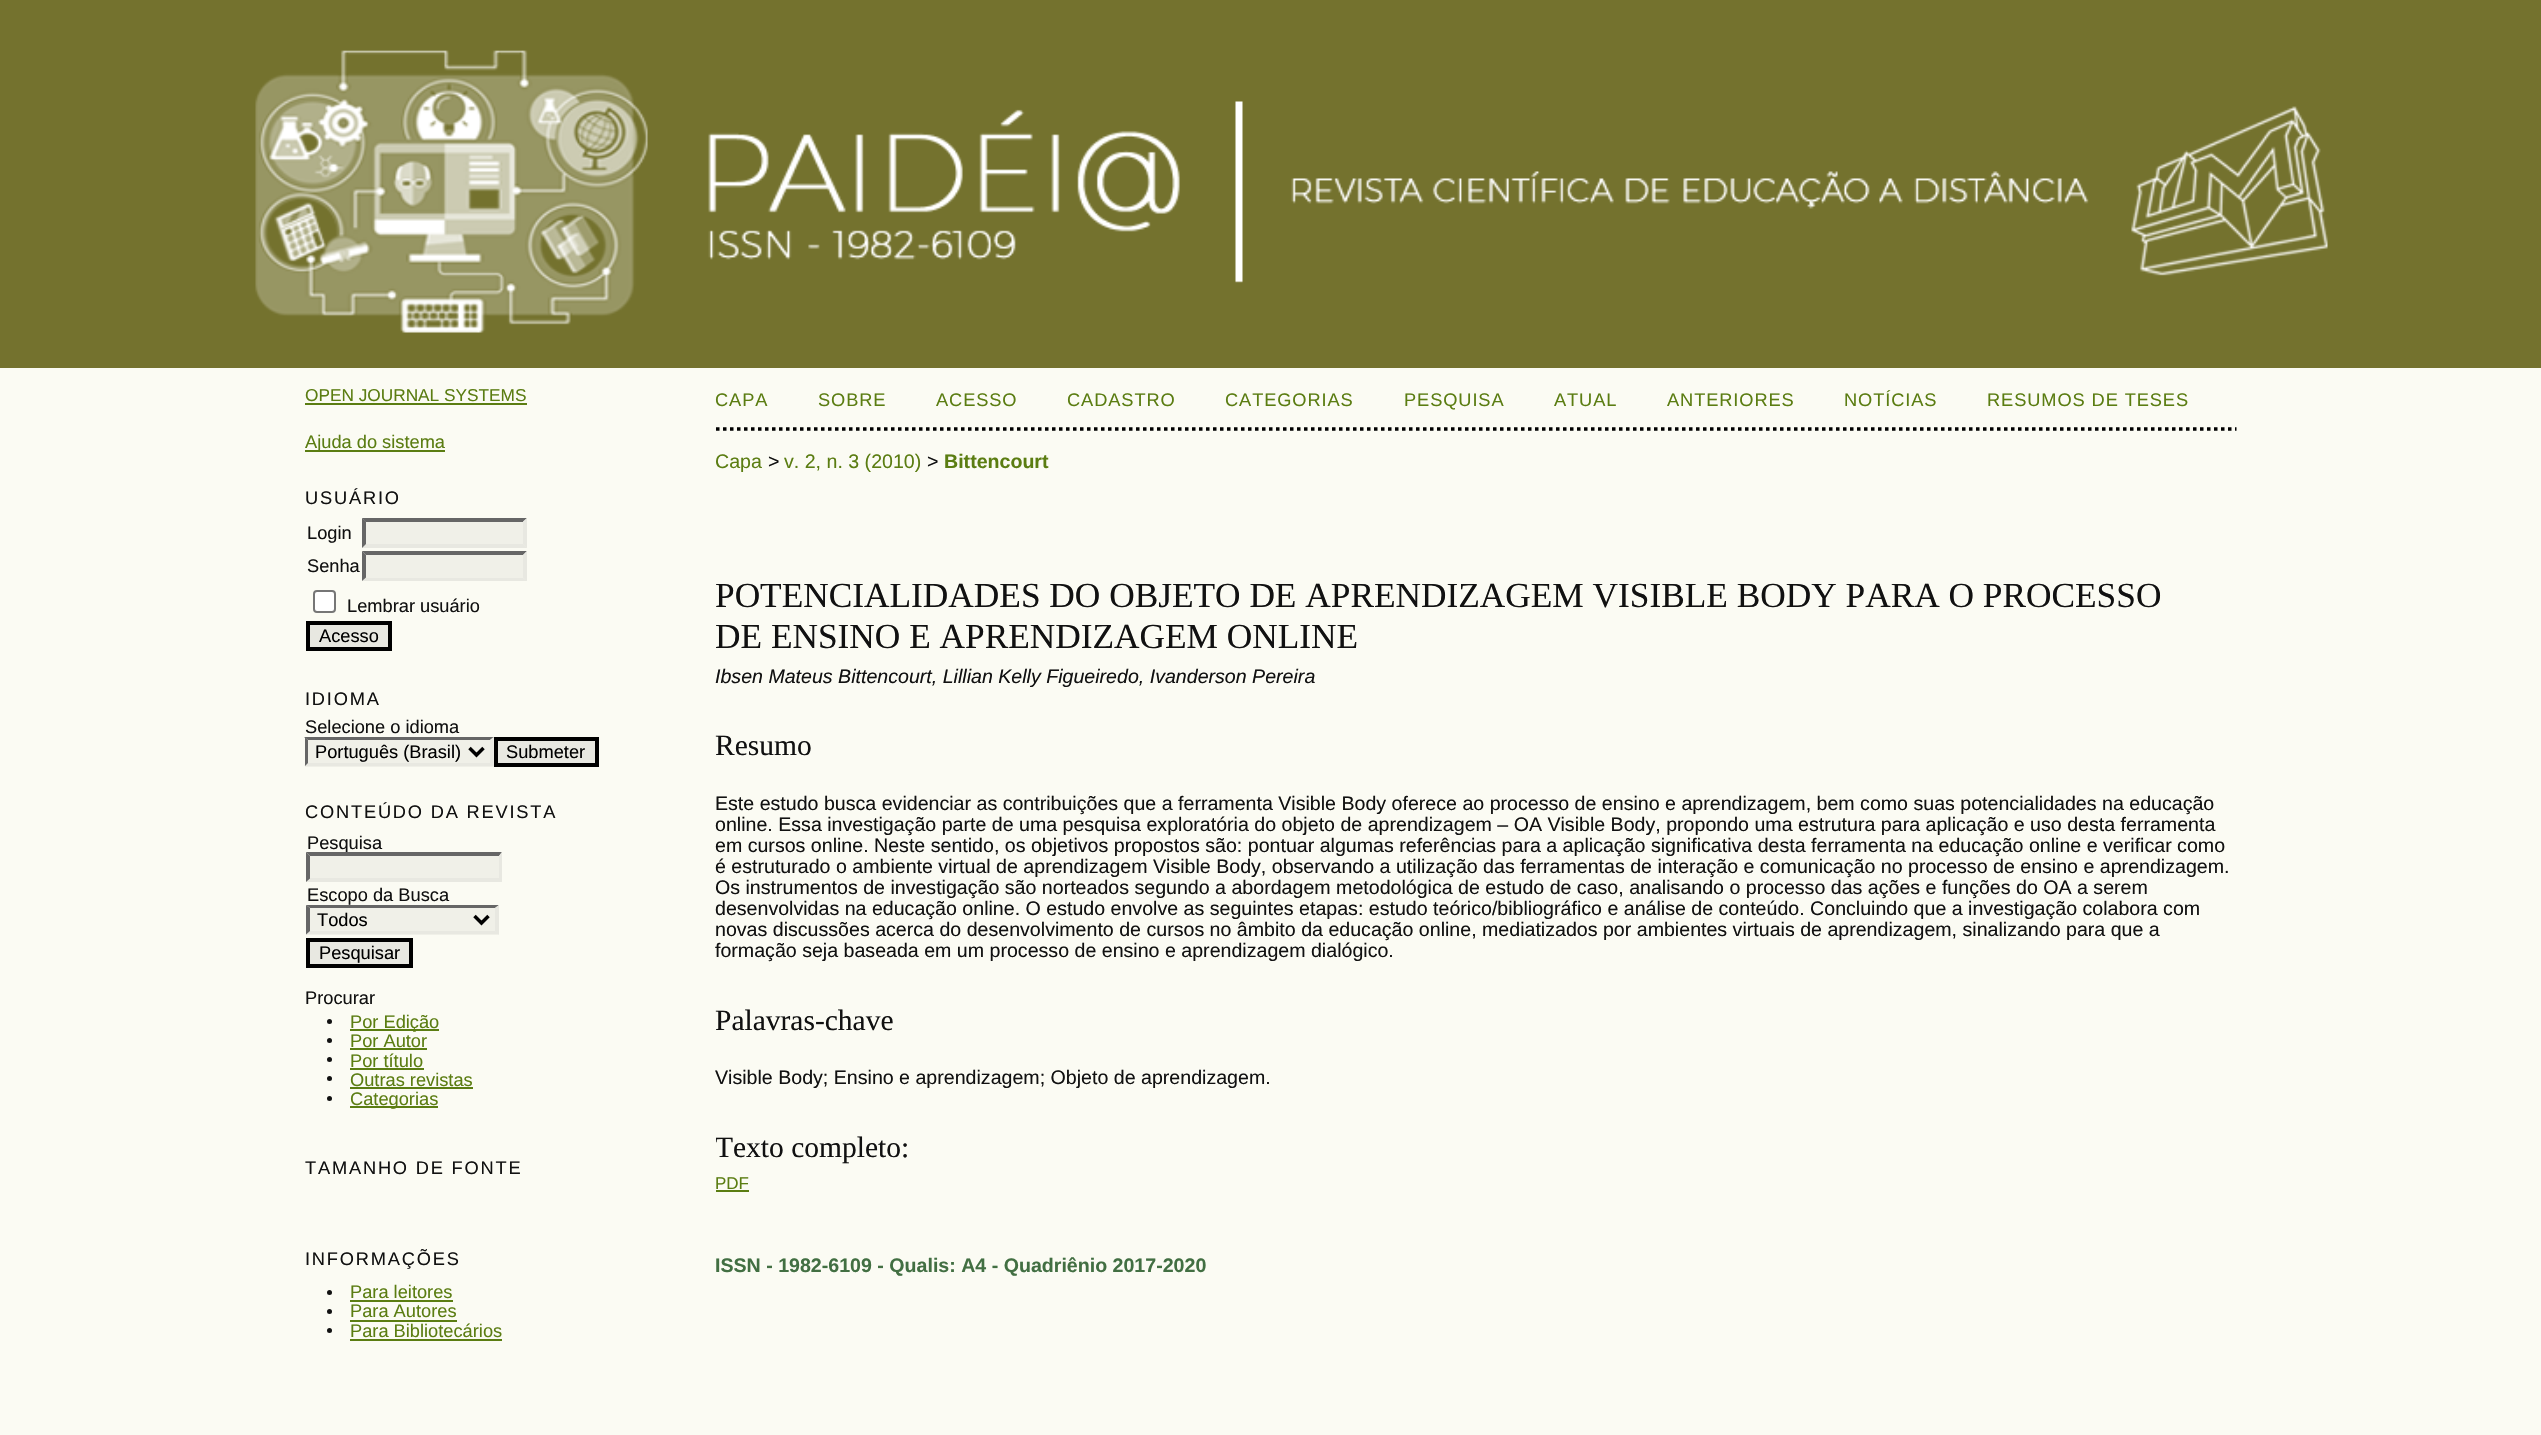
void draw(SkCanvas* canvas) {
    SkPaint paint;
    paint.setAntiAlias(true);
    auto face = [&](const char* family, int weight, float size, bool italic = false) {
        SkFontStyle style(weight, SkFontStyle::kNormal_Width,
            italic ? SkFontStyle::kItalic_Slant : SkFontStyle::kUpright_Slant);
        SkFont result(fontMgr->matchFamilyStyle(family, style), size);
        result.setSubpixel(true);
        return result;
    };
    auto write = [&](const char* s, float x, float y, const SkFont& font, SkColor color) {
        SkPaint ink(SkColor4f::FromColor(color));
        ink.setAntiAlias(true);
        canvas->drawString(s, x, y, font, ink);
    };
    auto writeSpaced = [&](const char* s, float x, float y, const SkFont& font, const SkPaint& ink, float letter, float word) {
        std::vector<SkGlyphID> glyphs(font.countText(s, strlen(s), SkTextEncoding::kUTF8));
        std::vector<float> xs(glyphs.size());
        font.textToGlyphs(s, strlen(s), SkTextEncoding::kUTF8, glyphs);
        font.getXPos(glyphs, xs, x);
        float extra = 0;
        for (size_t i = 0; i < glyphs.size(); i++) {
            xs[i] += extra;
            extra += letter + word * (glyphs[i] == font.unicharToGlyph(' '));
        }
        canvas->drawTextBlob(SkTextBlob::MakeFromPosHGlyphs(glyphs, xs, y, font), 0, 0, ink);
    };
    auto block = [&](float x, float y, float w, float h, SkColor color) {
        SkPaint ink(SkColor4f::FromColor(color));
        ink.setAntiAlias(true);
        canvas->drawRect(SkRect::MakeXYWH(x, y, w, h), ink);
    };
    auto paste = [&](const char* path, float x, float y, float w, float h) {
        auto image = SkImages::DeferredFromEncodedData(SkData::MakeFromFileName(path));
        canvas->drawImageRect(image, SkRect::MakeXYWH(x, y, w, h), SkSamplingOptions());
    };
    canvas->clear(SkColorSetRGB(251, 251, 243));
    block(0, 0, 2541, 368, SkColorSetRGB(116, 114, 46));
    paste("pic1.png", 255, 50, 2073, 283);
    auto kFont1 = face("Liberation Sans", 400, 17.25f);
    write("OPEN JOURNAL SYSTEMS", 305, 401, kFont1, SkColorSetRGB(91, 125, 18));
    block(305, 403, 222, 2, SkColorSetRGB(91, 125, 18));
    block(305, 450, 140, 2, SkColorSetRGB(91, 125, 18));
    auto kFont2 = face("Liberation Sans", 400, 18.25f);
    write("Ajuda do sistema", 305, 448, kFont2, SkColorSetRGB(91, 125, 18));
    paint.setColor(SkColorSetRGB(17, 17, 17));
    writeSpaced("USUÁRIO", 305, 504, kFont2, paint, 1.8f, 0);
    write("Login", 307, 539, kFont2, SkColorSetRGB(17, 17, 17));
    block(362, 518, 165, 30, SkColorSetRGB(240, 240, 232));
    paint.setColor(SkColorSetRGB(102, 102, 102));
    canvas->drawPath(SkPathBuilder().moveTo(362, 518).lineTo(527, 518).lineTo(523, 522).lineTo(366, 522).close().detach(), paint);
    paint.setColor(SkColorSetRGB(232, 232, 225));
    canvas->drawPath(SkPathBuilder().moveTo(527, 518).lineTo(527, 548).lineTo(523, 544).lineTo(523, 521.5f).close().detach(), paint);
    canvas->drawPath(SkPathBuilder().moveTo(527, 548).lineTo(362, 548).lineTo(366, 544).lineTo(523, 544).close().detach(), paint);
    paint.setColor(SkColorSetRGB(102, 102, 102));
    canvas->drawPath(SkPathBuilder().moveTo(362, 548).lineTo(362, 518).lineTo(366, 521.5f).lineTo(366, 544).close().detach(), paint);
    write("Senha", 307, 572, kFont2, SkColorSetRGB(17, 17, 17));
    block(362, 551, 165, 30, SkColorSetRGB(240, 240, 232));
    canvas->drawPath(SkPathBuilder().moveTo(362, 551).lineTo(527, 551).lineTo(523, 555).lineTo(366, 555).close().detach(), paint);
    paint.setColor(SkColorSetRGB(232, 232, 225));
    canvas->drawPath(SkPathBuilder().moveTo(527, 551).lineTo(527, 581).lineTo(523, 577.5f).lineTo(523, 555).close().detach(), paint);
    canvas->drawPath(SkPathBuilder().moveTo(527, 581).lineTo(362, 581).lineTo(366, 578).lineTo(523, 578).close().detach(), paint);
    paint.setColor(SkColorSetRGB(102, 102, 102));
    canvas->drawPath(SkPathBuilder().moveTo(362, 581).lineTo(362, 551).lineTo(366, 555).lineTo(366, 577.5f).close().detach(), paint);
    paint.setColor(SK_ColorWHITE);
    canvas->drawRoundRect(SkRect::MakeXYWH(314, 591, 21, 21), 3, 3, paint);
    paint.setStyle(SkPaint::kStroke_Style);
    paint.setStrokeWidth(2);
    paint.setColor(SkColorSetRGB(118, 118, 118));
    canvas->drawRoundRect(SkRect::MakeXYWH(314, 591, 21, 21), 3, 3, paint);
    write("Lembrar usuário", 347, 612, kFont2, SkColorSetRGB(17, 17, 17));
    paint.setStyle(SkPaint::kFill_Style);
    paint.setColor(SkColorSetRGB(232, 232, 225));
    canvas->drawRect(SkRect::MakeXYWH(308, 623, 82, 26), paint);
    paint.setStyle(SkPaint::kStroke_Style);
    paint.setStrokeWidth(4);
    paint.setColor(SK_ColorBLACK);
    canvas->drawRect(SkRect::MakeXYWH(308, 623, 82, 26), paint);
    write("Acesso", 319, 642, kFont2, SK_ColorBLACK);
    paint.setStyle(SkPaint::kFill_Style);
    paint.setColor(SkColorSetRGB(17, 17, 17));
    writeSpaced("IDIOMA", 305, 705, kFont2, paint, 1.8f, 0);
    write("Selecione o idioma", 305, 733, kFont2, SkColorSetRGB(17, 17, 17));
    block(305, 737, 189, 30, SkColorSetRGB(240, 240, 232));
    paint.setColor(SkColorSetRGB(102, 102, 102));
    canvas->drawPath(SkPathBuilder().moveTo(304, 737).lineTo(494, 737).lineTo(490, 740).lineTo(308, 740).close().detach(), paint);
    paint.setColor(SkColorSetRGB(232, 232, 225));
    canvas->drawPath(SkPathBuilder().moveTo(493.5f, 737).lineTo(493.5f, 766.5f).lineTo(490, 763).lineTo(490, 740).close().detach(), paint);
    canvas->drawPath(SkPathBuilder().moveTo(494, 766).lineTo(304, 766).lineTo(308, 763).lineTo(490, 763).close().detach(), paint);
    canvas->save();
    canvas->clipRect(SkRect::MakeXYWH(305, 368, 337, 1032));
    paint.setColor(SkColorSetRGB(102, 102, 102));
    canvas->drawPath(SkPathBuilder().moveTo(304.5f, 766.5f).lineTo(304.5f, 737).lineTo(308, 740).lineTo(308, 763).close().detach(), paint);
    canvas->restore();
    paint.setStyle(SkPaint::kStroke_Style);
    paint.setStrokeWidth(3.5f);
    paint.setColor(SK_ColorBLACK);
    canvas->drawPath(SkPathBuilder().moveTo(469.5f, 748).lineTo(476.5f, 755).lineTo(483.5f, 748).detach(), paint);
    write("Português (Brasil)", 315, 758, kFont2, SK_ColorBLACK);
    paint.setStyle(SkPaint::kFill_Style);
    paint.setColor(SkColorSetRGB(232, 232, 225));
    canvas->drawRect(SkRect::MakeXYWH(496, 739, 101, 26), paint);
    paint.setStyle(SkPaint::kStroke_Style);
    paint.setStrokeWidth(4);
    paint.setColor(SK_ColorBLACK);
    canvas->drawRect(SkRect::MakeXYWH(496, 739, 101, 26), paint);
    write("Submeter", 506, 758, kFont2, SK_ColorBLACK);
    paint.setStyle(SkPaint::kFill_Style);
    paint.setColor(SkColorSetRGB(17, 17, 17));
    writeSpaced("CONTEÚDO DA REVISTA", 305, 818, kFont2, paint, 1.8f, 0);
    write("Pesquisa", 307, 849, kFont2, SkColorSetRGB(17, 17, 17));
    block(306, 852, 196, 30, SkColorSetRGB(240, 240, 232));
    paint.setColor(SkColorSetRGB(102, 102, 102));
    canvas->drawPath(SkPathBuilder().moveTo(306, 852).lineTo(502, 852).lineTo(499, 856).lineTo(310, 856).close().detach(), paint);
    paint.setColor(SkColorSetRGB(232, 232, 225));
    canvas->drawPath(SkPathBuilder().moveTo(502, 852).lineTo(502, 882).lineTo(499, 878.5f).lineTo(499, 856).close().detach(), paint);
    canvas->drawPath(SkPathBuilder().moveTo(502, 882).lineTo(306, 882).lineTo(310, 878).lineTo(499, 878).close().detach(), paint);
    paint.setColor(SkColorSetRGB(102, 102, 102));
    canvas->drawPath(SkPathBuilder().moveTo(306, 882).lineTo(306, 852).lineTo(310, 856).lineTo(310, 878.5f).close().detach(), paint);
    write("Escopo da Busca", 307, 901, kFont2, SkColorSetRGB(17, 17, 17));
    block(306, 905, 193, 30, SkColorSetRGB(240, 240, 232));
    canvas->drawPath(SkPathBuilder().moveTo(306, 905).lineTo(499, 905).lineTo(495, 908).lineTo(310, 908).close().detach(), paint);
    paint.setColor(SkColorSetRGB(232, 232, 225));
    canvas->drawPath(SkPathBuilder().moveTo(499, 905).lineTo(499, 934.5f).lineTo(495, 931).lineTo(495, 908).close().detach(), paint);
    canvas->drawPath(SkPathBuilder().moveTo(499, 934).lineTo(306, 934).lineTo(310, 931).lineTo(495, 931).close().detach(), paint);
    paint.setColor(SkColorSetRGB(102, 102, 102));
    canvas->drawPath(SkPathBuilder().moveTo(306, 934.5f).lineTo(306, 905).lineTo(310, 908).lineTo(310, 931).close().detach(), paint);
    paint.setStyle(SkPaint::kStroke_Style);
    paint.setStrokeWidth(3.5f);
    paint.setColor(SK_ColorBLACK);
    canvas->drawPath(SkPathBuilder().moveTo(474.5f, 916).lineTo(481.5f, 923).lineTo(488.5f, 916).detach(), paint);
    write("Todos", 317, 926, kFont2, SK_ColorBLACK);
    paint.setStyle(SkPaint::kFill_Style);
    paint.setColor(SkColorSetRGB(232, 232, 225));
    canvas->drawRect(SkRect::MakeXYWH(308, 940, 103, 26), paint);
    paint.setStyle(SkPaint::kStroke_Style);
    paint.setStrokeWidth(4);
    paint.setColor(SK_ColorBLACK);
    canvas->drawRect(SkRect::MakeXYWH(308, 940, 103, 26), paint);
    write("Pesquisar", 319, 959, kFont2, SK_ColorBLACK);
    write("Procurar", 305, 1004, kFont2, SkColorSetRGB(17, 17, 17));
    paint.setStyle(SkPaint::kFill_Style);
    paint.setColor(SkColorSetRGB(17, 17, 17));
    canvas->drawCircle(329.5f, 1021.5f, 2.5f, paint);
    block(350, 1029, 89, 2, SkColorSetRGB(91, 125, 18));
    write("Por Edição", 350, 1028, kFont2, SkColorSetRGB(91, 125, 18));
    canvas->drawCircle(329.5f, 1040.5f, 2.5f, paint);
    write("Por Autor", 350, 1047, kFont2, SkColorSetRGB(91, 125, 18));
    block(350, 1048, 77, 2, SkColorSetRGB(91, 125, 18));
    canvas->drawCircle(329.5f, 1059.5f, 2.5f, paint);
    write("Por título", 350, 1067, kFont2, SkColorSetRGB(91, 125, 18));
    block(350, 1068, 74, 2, SkColorSetRGB(91, 125, 18));
    canvas->drawCircle(329.5f, 1078.5f, 2.5f, paint);
    write("Outras revistas", 350, 1086, kFont2, SkColorSetRGB(91, 125, 18));
    block(350, 1087, 123, 2, SkColorSetRGB(91, 125, 18));
    canvas->drawCircle(329.5f, 1098.5f, 2.5f, paint);
    block(350, 1106, 88, 2, SkColorSetRGB(91, 125, 18));
    write("Categorias", 350, 1105, kFont2, SkColorSetRGB(91, 125, 18));
    writeSpaced("TAMANHO DE FONTE", 305, 1174, kFont2, paint, 1.8f, 0);
    writeSpaced("INFORMAÇÕES", 305, 1265, kFont2, paint, 1.8f, 0);
    canvas->drawCircle(329.5f, 1292.5f, 2.5f, paint);
    write("Para leitores", 350, 1298, kFont2, SkColorSetRGB(91, 125, 18));
    block(350, 1300, 103, 2, SkColorSetRGB(91, 125, 18));
    canvas->drawCircle(329.5f, 1311.5f, 2.5f, paint);
    write("Para Autores", 350, 1317, kFont2, SkColorSetRGB(91, 125, 18));
    block(350, 1320, 107, 2, SkColorSetRGB(91, 125, 18));
    canvas->drawCircle(329.5f, 1330.5f, 2.5f, paint);
    write("Para Bibliotecários", 350, 1337, kFont2, SkColorSetRGB(91, 125, 18));
    block(350, 1339, 152, 2, SkColorSetRGB(91, 125, 18));
    paint.setStyle(SkPaint::kStroke_Style);
    paint.setStrokeWidth(3.5f);
    paint.setColor(SK_ColorBLACK);
    paint.setPathEffect(SkDashPathEffect::Make({{3.5f, 3.5f}}, 0));
    canvas->drawPath(SkPathBuilder().moveTo(716, 429).lineTo(2236.5f, 429).detach(), paint);
    paint.setPathEffect(nullptr);
    paint.setStyle(SkPaint::kFill_Style);
    paint.setColor(SkColorSetRGB(91, 125, 18));
    writeSpaced("CAPA", 715, 406, kFont2, paint, 0.9f, 0);
    writeSpaced("SOBRE", 818, 406, kFont2, paint, 0.9f, 0);
    writeSpaced("ACESSO", 936, 406, kFont2, paint, 0.9f, 0);
    writeSpaced("CADASTRO", 1067, 406, kFont2, paint, 0.9f, 0);
    writeSpaced("CATEGORIAS", 1225, 406, kFont2, paint, 0.9f, 0);
    writeSpaced("PESQUISA", 1404, 406, kFont2, paint, 0.9f, 0);
    writeSpaced("ATUAL", 1554, 406, kFont2, paint, 0.9f, 0);
    writeSpaced("ANTERIORES", 1667, 406, kFont2, paint, 0.9f, 0);
    writeSpaced("NOTÍCIAS", 1844, 406, kFont2, paint, 0.9f, 0);
    writeSpaced("RESUMOS DE TESES", 1987, 406, kFont2, paint, 0.9f, 0);
    auto kFont3 = face("Liberation Sans", 400, 19.6f);
    write("Capa", 715, 468, kFont3, SkColorSetRGB(91, 125, 18));
    write(">", 768, 468, kFont3, SkColorSetRGB(17, 17, 17));
    write("v. 2, n. 3 (2010)", 784, 468, kFont3, SkColorSetRGB(91, 125, 18));
    write(">", 927, 468, kFont3, SkColorSetRGB(17, 17, 17));
    auto kFont4 = face("Liberation Sans", 700, 19.6f);
    write("Bittencourt", 944, 468, kFont4, SkColorSetRGB(91, 125, 18));
    auto kFont5 = face("Liberation Serif", 400, 35.3f);
    write("POTENCIALIDADES DO OBJETO DE APRENDIZAGEM VISIBLE BODY PARA O PROCESSO", 715, 607, kFont5, SkColorSetRGB(17, 17, 17));
    write("DE ENSINO E APRENDIZAGEM ONLINE", 715, 648, kFont5, SkColorSetRGB(17, 17, 17));
    auto kFont6 = face("Liberation Sans", 400, 19.6f, true);
    write("Ibsen Mateus Bittencourt, Lillian Kelly Figueiredo, Ivanderson Pereira", 715, 683, kFont6, SkColorSetRGB(17, 17, 17));
    auto kFont7 = face("Liberation Serif", 400, 29.5f);
    write("Resumo", 715, 755, kFont7, SkColorSetRGB(17, 17, 17));
    write("Este estudo busca evidenciar as contribuições que a ferramenta Visible Body oferece ao processo de ensino e aprendizagem, bem como suas potencialidades na educação", 715, 810, kFont3, SkColorSetRGB(17, 17, 17));
    write("online. Essa investigação parte de uma pesquisa exploratória do objeto de aprendizagem – OA Visible Body, propondo uma estrutura para aplicação e uso desta ferramenta", 715, 831, kFont3, SkColorSetRGB(17, 17, 17));
    write("em cursos online. Neste sentido, os objetivos propostos são: pontuar algumas referências para a aplicação significativa desta ferramenta na educação online e verificar como", 715, 852, kFont3, SkColorSetRGB(17, 17, 17));
    write("é estruturado o ambiente virtual de aprendizagem Visible Body, observando a utilização das ferramentas de interação e comunicação no processo de ensino e aprendizagem.", 715, 873, kFont3, SkColorSetRGB(17, 17, 17));
    write("Os instrumentos de investigação são norteados segundo a abordagem metodológica de estudo de caso, analisando o processo das ações e funções do OA a serem", 715, 894, kFont3, SkColorSetRGB(17, 17, 17));
    write("desenvolvidas na educação online. O estudo envolve as seguintes etapas: estudo teórico/bibliográfico e análise de conteúdo. Concluindo que a investigação colabora com", 715, 915, kFont3, SkColorSetRGB(17, 17, 17));
    write("novas discussões acerca do desenvolvimento de cursos no âmbito da educação online, mediatizados por ambientes virtuais de aprendizagem, sinalizando para que a", 715, 936, kFont3, SkColorSetRGB(17, 17, 17));
    write("formação seja baseada em um processo de ensino e aprendizagem dialógico.", 715, 957, kFont3, SkColorSetRGB(17, 17, 17));
    write("Palavras-chave", 715, 1030, kFont7, SkColorSetRGB(17, 17, 17));
    write("Visible Body; Ensino e aprendizagem; Objeto de aprendizagem.", 715, 1084, kFont3, SkColorSetRGB(17, 17, 17));
    canvas->save();
    canvas->clipRect(SkRect::MakeXYWH(716, 368, 1521, 1023));
    write("Texto completo:", 715, 1157, kFont7, SkColorSetRGB(17, 17, 17));
    canvas->restore();
    auto kFont8 = face("Liberation Sans", 400, 17);
    write("PDF", 715, 1189, kFont8, SkColorSetRGB(91, 125, 18));
    block(716, 1190, 33, 2, SkColorSetRGB(91, 125, 18));
    write("ISSN - 1982-6109 - Qualis: A4 - Quadriênio 2017-2020", 715, 1272, kFont4, SkColorSetRGB(66, 111, 66));
}
